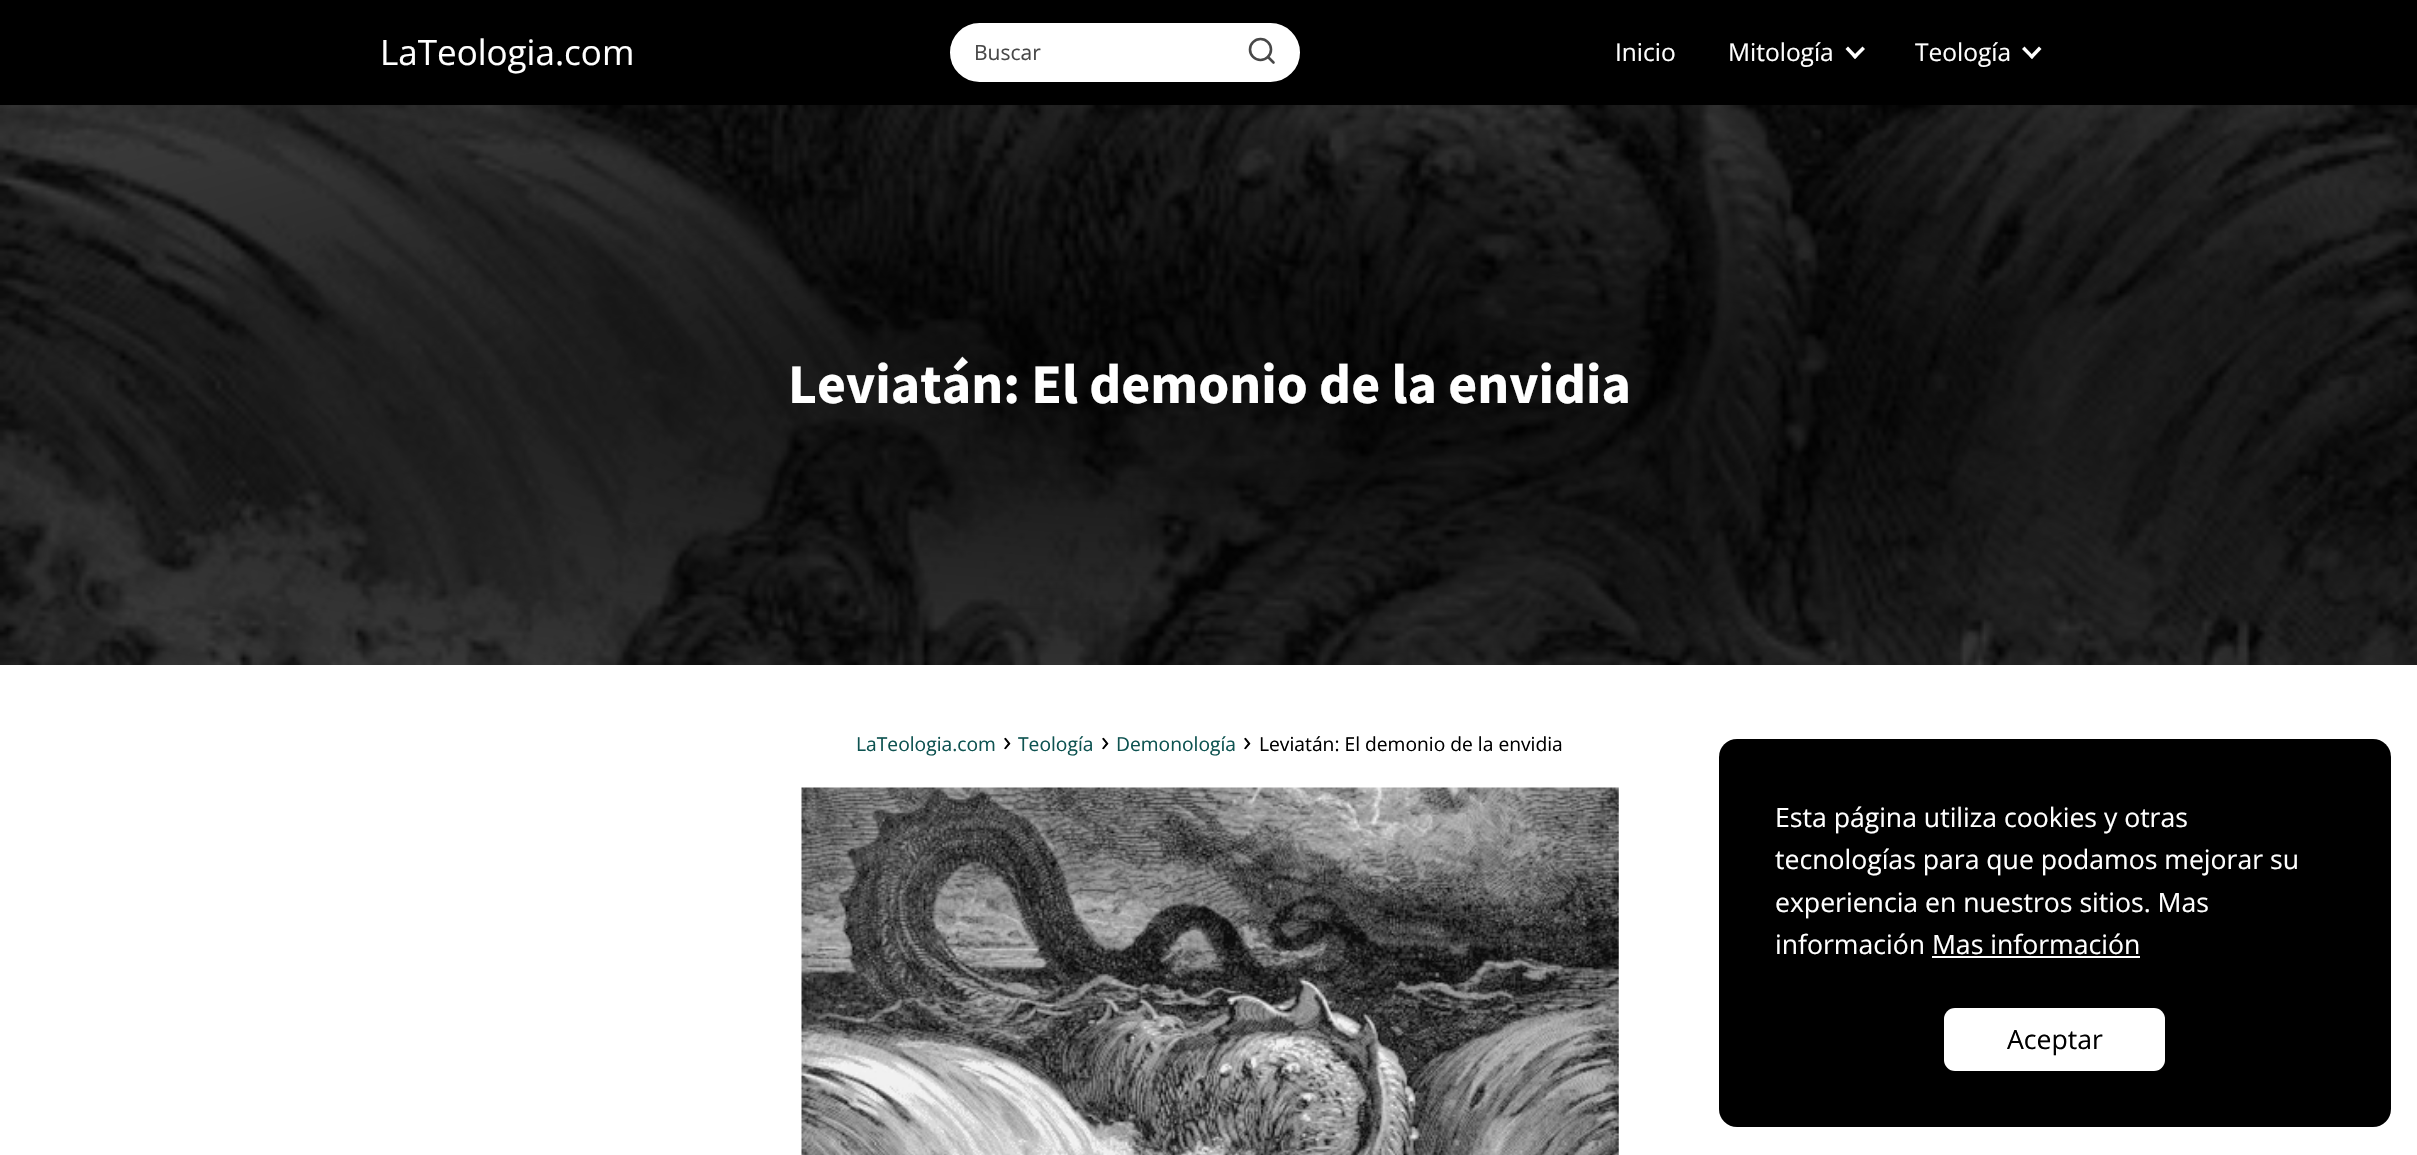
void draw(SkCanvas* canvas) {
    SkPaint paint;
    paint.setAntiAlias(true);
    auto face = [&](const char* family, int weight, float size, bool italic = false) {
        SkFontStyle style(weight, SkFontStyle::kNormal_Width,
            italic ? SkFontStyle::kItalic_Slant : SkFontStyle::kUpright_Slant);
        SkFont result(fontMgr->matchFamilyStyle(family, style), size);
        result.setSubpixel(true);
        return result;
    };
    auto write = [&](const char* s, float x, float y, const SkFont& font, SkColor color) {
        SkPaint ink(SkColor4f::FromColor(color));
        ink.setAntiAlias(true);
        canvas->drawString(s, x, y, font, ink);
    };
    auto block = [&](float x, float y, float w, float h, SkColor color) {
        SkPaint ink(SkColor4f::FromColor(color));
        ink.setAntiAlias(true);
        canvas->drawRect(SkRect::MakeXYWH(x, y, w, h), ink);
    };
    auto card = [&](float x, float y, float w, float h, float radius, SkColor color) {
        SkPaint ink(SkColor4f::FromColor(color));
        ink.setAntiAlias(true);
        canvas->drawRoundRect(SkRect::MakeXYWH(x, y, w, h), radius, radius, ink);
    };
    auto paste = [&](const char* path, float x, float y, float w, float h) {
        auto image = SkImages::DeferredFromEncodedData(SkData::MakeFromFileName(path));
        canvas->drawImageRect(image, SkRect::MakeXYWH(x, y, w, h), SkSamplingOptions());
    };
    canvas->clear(SK_ColorWHITE);
    block(0, 0, 2417, 105, SK_ColorBLACK);
    auto kFont1 = face("Open Sans", 400, 35);
    write("LaTeologia.com", 380, 65, kFont1, SK_ColorWHITE);
    paint.setColor(SK_ColorWHITE);
    canvas->drawRoundRect(SkRect::MakeXYWH(951, 24, 348, 57), 28.5f, 28.5f, paint);
    paint.setStyle(SkPaint::kStroke_Style);
    paint.setStrokeWidth(2);
    canvas->drawRoundRect(SkRect::MakeXYWH(951, 24, 348, 57), 28.5f, 28.5f, paint);
    auto kFont2 = face("Open Sans", 400, 21);
    write("Buscar", 974, 60, kFont2, SkColorSetRGB(72, 72, 72));
    paint.setStrokeWidth(2.6f);
    paint.setColor(SkColorSetRGB(72, 72, 72));
    canvas->drawCircle(1260.5f, 49.5f, 10.5f, paint);
    paint.setStrokeCap(SkPaint::kRound_Cap);
    paint.setStrokeJoin(SkPaint::kRound_Join);
    canvas->drawPath(SkPathBuilder().moveTo(1273.5f, 62.5f).lineTo(1268, 57).detach(), paint);
    auto kFont3 = face("Open Sans", 400, 24.5f);
    write("Inicio", 1615, 61, kFont3, SK_ColorWHITE);
    write("Mitología", 1728, 61, kFont3, SK_ColorWHITE);
    paint.setStyle(SkPaint::kFill_Style);
    paint.setColor(SK_ColorWHITE);
    canvas->drawPath(SkPathBuilder().moveTo(1862.5f, 46.5f).lineTo(1865, 49).lineTo(1855, 59).lineTo(1852.5f, 56.5f).close().detach(), paint);
    canvas->drawPath(SkPathBuilder().moveTo(1848, 46.5f).lineTo(1857.5f, 56.5f).lineTo(1855, 59).lineTo(1845.5f, 49).close().detach(), paint);
    write("Teología", 1915, 61, kFont3, SK_ColorWHITE);
    canvas->drawPath(SkPathBuilder().moveTo(2039, 46.5f).lineTo(2041.5f, 49).lineTo(2032, 59).lineTo(2029.5f, 56.5f).close().detach(), paint);
    canvas->drawPath(SkPathBuilder().moveTo(2024.5f, 46.5f).lineTo(2034, 56.5f).lineTo(2032, 59).lineTo(2022, 49).close().detach(), paint);
    paste("pic1.png", 0, 105, 2417, 560);
    auto kFont4 = face("Source Sans Pro", 700, 56);
    write("Leviatán: El demonio de la envidia", 788, 403, kFont4, SK_ColorWHITE);
    auto kFont5 = face("Open Sans", 400, 19.25f);
    write("LaTeologia.com", 856, 751, kFont5, SkColorSetRGB(14, 83, 81));
    auto kFont6 = face("Open Sans", 400, 28);
    write("›", 1003, 751, kFont6, SK_ColorBLACK);
    write("Teología", 1018, 751, kFont5, SkColorSetRGB(14, 83, 81));
    write("›", 1101, 751, kFont6, SK_ColorBLACK);
    write("Demonología", 1116, 751, kFont5, SkColorSetRGB(14, 83, 81));
    write("›", 1243, 751, kFont6, SK_ColorBLACK);
    write("Leviatán: El demonio de la envidia", 1259, 751, kFont5, SK_ColorBLACK);
    paste("pic2.png", 801, 787, 818, 368);
    card(1719, 739, 672, 388, 18, SK_ColorBLACK);
    auto kFont7 = face("Open Sans", 400, 26.6f);
    write("Esta página utiliza cookies y otras", 1775, 827, kFont7, SK_ColorWHITE);
    write("tecnologías para que podamos mejorar su", 1775, 869, kFont7, SK_ColorWHITE);
    write("experiencia en nuestros sitios. Mas", 1775, 912, kFont7, SK_ColorWHITE);
    write("información Mas información", 1775, 954, kFont7, SK_ColorWHITE);
    block(1932, 956, 208, 2, SK_ColorWHITE);
    card(1944, 1008, 221, 63, 11, SK_ColorWHITE);
    write("Aceptar", 2007, 1049, kFont7, SK_ColorBLACK);
}
